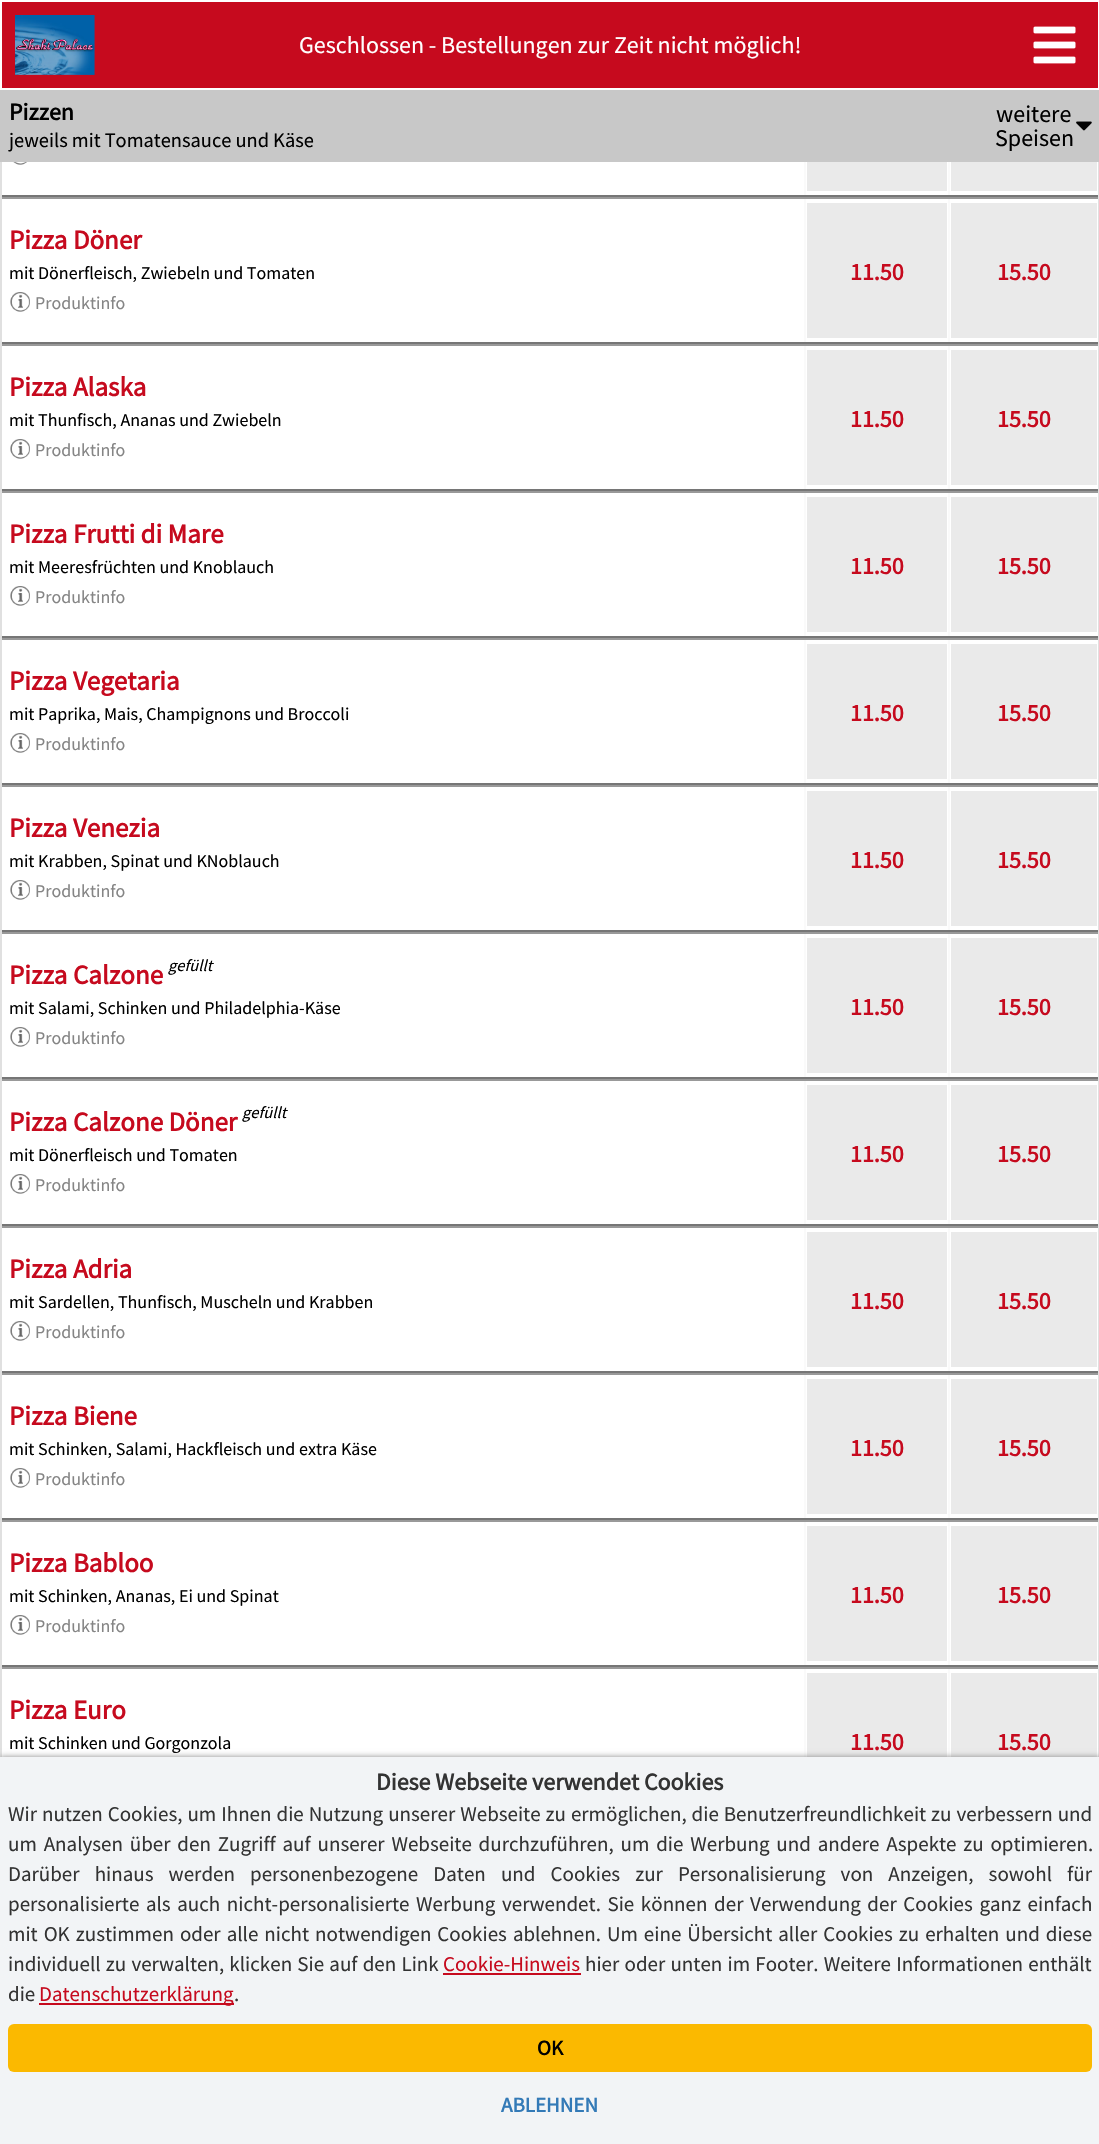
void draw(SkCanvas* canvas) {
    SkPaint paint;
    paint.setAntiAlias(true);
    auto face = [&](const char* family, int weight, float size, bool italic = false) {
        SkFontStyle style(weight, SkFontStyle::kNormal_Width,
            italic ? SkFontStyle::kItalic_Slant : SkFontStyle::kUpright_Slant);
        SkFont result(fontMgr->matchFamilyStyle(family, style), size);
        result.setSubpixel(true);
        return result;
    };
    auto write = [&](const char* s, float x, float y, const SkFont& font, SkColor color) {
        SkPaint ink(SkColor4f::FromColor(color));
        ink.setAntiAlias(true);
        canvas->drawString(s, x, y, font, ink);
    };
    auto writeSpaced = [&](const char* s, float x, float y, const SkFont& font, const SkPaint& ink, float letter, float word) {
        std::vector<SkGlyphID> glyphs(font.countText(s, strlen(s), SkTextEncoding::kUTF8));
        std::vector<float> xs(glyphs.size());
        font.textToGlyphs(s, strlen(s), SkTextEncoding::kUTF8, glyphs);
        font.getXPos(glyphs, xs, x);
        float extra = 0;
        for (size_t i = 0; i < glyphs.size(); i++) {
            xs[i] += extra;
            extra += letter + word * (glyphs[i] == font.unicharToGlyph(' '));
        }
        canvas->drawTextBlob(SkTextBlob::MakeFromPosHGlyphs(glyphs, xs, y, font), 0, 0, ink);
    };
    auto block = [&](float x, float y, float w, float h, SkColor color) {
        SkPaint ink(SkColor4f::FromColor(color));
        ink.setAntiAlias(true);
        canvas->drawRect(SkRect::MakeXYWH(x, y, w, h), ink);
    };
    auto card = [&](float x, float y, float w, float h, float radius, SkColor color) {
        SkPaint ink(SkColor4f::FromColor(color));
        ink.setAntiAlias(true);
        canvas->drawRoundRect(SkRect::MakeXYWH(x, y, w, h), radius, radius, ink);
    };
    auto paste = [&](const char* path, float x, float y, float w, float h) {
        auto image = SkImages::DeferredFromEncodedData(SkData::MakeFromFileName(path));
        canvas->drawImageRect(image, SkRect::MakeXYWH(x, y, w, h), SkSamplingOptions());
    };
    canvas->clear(SK_ColorWHITE);
    block(2, 2, 1096, 86, SkColorSetRGB(198, 10, 30));
    paste("pic1.png", 15, 15, 80, 60);
    auto kFont1 = face("Source Sans Pro", 400, 24);
    write("Geschlossen - Bestellungen zur Zeit nicht möglich!", 299, 53, kFont1, SK_ColorWHITE);
    paste("pic2.png", 1033, 26, 43, 38);
    block(1098, 162, 1, 1595, SkColorSetRGB(224, 224, 224));
    block(0, 162, 2, 1595, SkColorSetRGB(224, 224, 224));
    block(0, 90, 1099, 72, SkColorSetRGB(200, 200, 200));
    auto kFont2 = face("Source Sans Pro", 700, 24);
    write("Pizzen", 9, 120, kFont2, SK_ColorBLACK);
    auto kFont3 = face("Source Sans Pro", 400, 20.4f);
    write("jeweils mit Tomatensauce und Käse", 9, 147, kFont3, SK_ColorBLACK);
    write("weitere", 996, 122, kFont1, SK_ColorBLACK);
    write("Speisen", 995, 146, kFont1, SK_ColorBLACK);
    paste("pic3.png", 1076, 121, 16, 10);
    block(804, 162, 2, 35, SkColorSetRGB(250, 250, 250));
    block(948, 162, 2, 35, SkColorSetRGB(250, 250, 250));
    block(2, 195, 1096, 2, SkColorSetRGB(118, 118, 118));
    paste("pic4.png", 13, 162, 14, 3);
    block(807, 162, 140, 29, SkColorSetRGB(234, 234, 234));
    block(951, 162, 146, 29, SkColorSetRGB(234, 234, 234));
    block(804, 198, 2, 146, SkColorSetRGB(250, 250, 250));
    block(948, 198, 2, 146, SkColorSetRGB(250, 250, 250));
    block(2, 197, 1096, 2, SkColorSetRGB(153, 153, 153));
    block(2, 342, 1096, 2, SkColorSetRGB(118, 118, 118));
    auto kFont4 = face("Source Sans Pro", 700, 27);
    write("Pizza Döner", 9, 249, kFont4, SkColorSetRGB(198, 10, 30));
    auto kFont5 = face("Source Sans Pro", 400, 18);
    write("mit Dönerfleisch, Zwiebeln und Tomaten", 9, 279, kFont5, SK_ColorBLACK);
    paste("pic5.png", 10, 292, 20, 20);
    write("Produktinfo", 35, 309, kFont5, SkColorSetRGB(133, 133, 133));
    block(807, 203, 140, 135, SkColorSetRGB(234, 234, 234));
    write("11.50", 850, 280, kFont2, SkColorSetRGB(198, 10, 30));
    block(951, 203, 146, 135, SkColorSetRGB(234, 234, 234));
    write("15.50", 997, 280, kFont2, SkColorSetRGB(198, 10, 30));
    block(804, 345, 2, 146, SkColorSetRGB(250, 250, 250));
    block(948, 345, 2, 146, SkColorSetRGB(250, 250, 250));
    block(2, 344, 1096, 2, SkColorSetRGB(153, 153, 153));
    block(2, 489, 1096, 2, SkColorSetRGB(118, 118, 118));
    write("Pizza Alaska", 9, 396, kFont4, SkColorSetRGB(198, 10, 30));
    write("mit Thunfisch, Ananas und Zwiebeln", 9, 426, kFont5, SK_ColorBLACK);
    paste("pic5.png", 10, 439, 20, 20);
    write("Produktinfo", 35, 456, kFont5, SkColorSetRGB(133, 133, 133));
    block(807, 350, 140, 135, SkColorSetRGB(234, 234, 234));
    write("11.50", 850, 427, kFont2, SkColorSetRGB(198, 10, 30));
    block(951, 350, 146, 135, SkColorSetRGB(234, 234, 234));
    write("15.50", 997, 427, kFont2, SkColorSetRGB(198, 10, 30));
    block(804, 492, 2, 146, SkColorSetRGB(250, 250, 250));
    block(948, 492, 2, 146, SkColorSetRGB(250, 250, 250));
    block(2, 491, 1096, 2, SkColorSetRGB(153, 153, 153));
    block(2, 636, 1096, 2, SkColorSetRGB(118, 118, 118));
    write("Pizza Frutti di Mare", 9, 543, kFont4, SkColorSetRGB(198, 10, 30));
    write("mit Meeresfrüchten und Knoblauch", 9, 573, kFont5, SK_ColorBLACK);
    paste("pic5.png", 10, 586, 20, 20);
    write("Produktinfo", 35, 603, kFont5, SkColorSetRGB(133, 133, 133));
    block(807, 497, 140, 135, SkColorSetRGB(234, 234, 234));
    write("11.50", 850, 574, kFont2, SkColorSetRGB(198, 10, 30));
    block(951, 497, 146, 135, SkColorSetRGB(234, 234, 234));
    write("15.50", 997, 574, kFont2, SkColorSetRGB(198, 10, 30));
    block(804, 639, 2, 146, SkColorSetRGB(250, 250, 250));
    block(948, 639, 2, 146, SkColorSetRGB(250, 250, 250));
    block(2, 638, 1096, 2, SkColorSetRGB(153, 153, 153));
    block(2, 783, 1096, 2, SkColorSetRGB(118, 118, 118));
    write("Pizza Vegetaria", 9, 690, kFont4, SkColorSetRGB(198, 10, 30));
    write("mit Paprika, Mais, Champignons und Broccoli", 9, 720, kFont5, SK_ColorBLACK);
    paste("pic5.png", 10, 733, 20, 20);
    write("Produktinfo", 35, 750, kFont5, SkColorSetRGB(133, 133, 133));
    block(807, 644, 140, 135, SkColorSetRGB(234, 234, 234));
    write("11.50", 850, 721, kFont2, SkColorSetRGB(198, 10, 30));
    block(951, 644, 146, 135, SkColorSetRGB(234, 234, 234));
    write("15.50", 997, 721, kFont2, SkColorSetRGB(198, 10, 30));
    block(804, 786, 2, 146, SkColorSetRGB(250, 250, 250));
    block(948, 786, 2, 146, SkColorSetRGB(250, 250, 250));
    block(2, 785, 1096, 2, SkColorSetRGB(153, 153, 153));
    block(2, 930, 1096, 2, SkColorSetRGB(118, 118, 118));
    write("Pizza Venezia", 9, 837, kFont4, SkColorSetRGB(198, 10, 30));
    write("mit Krabben, Spinat und KNoblauch", 9, 867, kFont5, SK_ColorBLACK);
    paste("pic5.png", 10, 880, 20, 20);
    write("Produktinfo", 35, 897, kFont5, SkColorSetRGB(133, 133, 133));
    block(807, 791, 140, 135, SkColorSetRGB(234, 234, 234));
    write("11.50", 850, 868, kFont2, SkColorSetRGB(198, 10, 30));
    block(951, 791, 146, 135, SkColorSetRGB(234, 234, 234));
    write("15.50", 997, 868, kFont2, SkColorSetRGB(198, 10, 30));
    block(804, 933, 2, 146, SkColorSetRGB(250, 250, 250));
    block(948, 933, 2, 146, SkColorSetRGB(250, 250, 250));
    block(2, 932, 1096, 2, SkColorSetRGB(153, 153, 153));
    block(2, 1077, 1096, 2, SkColorSetRGB(118, 118, 118));
    write("Pizza Calzone", 9, 984, kFont4, SkColorSetRGB(198, 10, 30));
    auto kFont6 = face("Source Sans Pro", 400, 16.5f, true);
    write("gefüllt", 168, 971, kFont6, SK_ColorBLACK);
    write("mit Salami, Schinken und Philadelphia-Käse", 9, 1014, kFont5, SK_ColorBLACK);
    paste("pic5.png", 10, 1027, 20, 20);
    write("Produktinfo", 35, 1044, kFont5, SkColorSetRGB(133, 133, 133));
    block(807, 938, 140, 135, SkColorSetRGB(234, 234, 234));
    write("11.50", 850, 1015, kFont2, SkColorSetRGB(198, 10, 30));
    block(951, 938, 146, 135, SkColorSetRGB(234, 234, 234));
    write("15.50", 997, 1015, kFont2, SkColorSetRGB(198, 10, 30));
    block(804, 1080, 2, 146, SkColorSetRGB(250, 250, 250));
    block(948, 1080, 2, 146, SkColorSetRGB(250, 250, 250));
    block(2, 1079, 1096, 2, SkColorSetRGB(153, 153, 153));
    block(2, 1224, 1096, 2, SkColorSetRGB(118, 118, 118));
    write("Pizza Calzone Döner", 9, 1131, kFont4, SkColorSetRGB(198, 10, 30));
    write("gefüllt", 242, 1118, kFont6, SK_ColorBLACK);
    write("mit Dönerfleisch und Tomaten", 9, 1161, kFont5, SK_ColorBLACK);
    paste("pic5.png", 10, 1174, 20, 20);
    write("Produktinfo", 35, 1191, kFont5, SkColorSetRGB(133, 133, 133));
    block(807, 1085, 140, 135, SkColorSetRGB(234, 234, 234));
    write("11.50", 850, 1162, kFont2, SkColorSetRGB(198, 10, 30));
    block(951, 1085, 146, 135, SkColorSetRGB(234, 234, 234));
    write("15.50", 997, 1162, kFont2, SkColorSetRGB(198, 10, 30));
    block(804, 1227, 2, 146, SkColorSetRGB(250, 250, 250));
    block(948, 1227, 2, 146, SkColorSetRGB(250, 250, 250));
    block(2, 1226, 1096, 2, SkColorSetRGB(153, 153, 153));
    block(2, 1371, 1096, 2, SkColorSetRGB(118, 118, 118));
    write("Pizza Adria", 9, 1278, kFont4, SkColorSetRGB(198, 10, 30));
    write("mit Sardellen, Thunfisch, Muscheln und Krabben", 9, 1308, kFont5, SK_ColorBLACK);
    paste("pic5.png", 10, 1321, 20, 20);
    write("Produktinfo", 35, 1338, kFont5, SkColorSetRGB(133, 133, 133));
    block(807, 1232, 140, 135, SkColorSetRGB(234, 234, 234));
    write("11.50", 850, 1309, kFont2, SkColorSetRGB(198, 10, 30));
    block(951, 1232, 146, 135, SkColorSetRGB(234, 234, 234));
    write("15.50", 997, 1309, kFont2, SkColorSetRGB(198, 10, 30));
    block(804, 1374, 2, 146, SkColorSetRGB(250, 250, 250));
    block(948, 1374, 2, 146, SkColorSetRGB(250, 250, 250));
    block(2, 1373, 1096, 2, SkColorSetRGB(153, 153, 153));
    block(2, 1518, 1096, 2, SkColorSetRGB(118, 118, 118));
    write("Pizza Biene", 9, 1425, kFont4, SkColorSetRGB(198, 10, 30));
    write("mit Schinken, Salami, Hackfleisch und extra Käse", 9, 1455, kFont5, SK_ColorBLACK);
    paste("pic5.png", 10, 1468, 20, 20);
    write("Produktinfo", 35, 1485, kFont5, SkColorSetRGB(133, 133, 133));
    block(807, 1379, 140, 135, SkColorSetRGB(234, 234, 234));
    write("11.50", 850, 1456, kFont2, SkColorSetRGB(198, 10, 30));
    block(951, 1379, 146, 135, SkColorSetRGB(234, 234, 234));
    write("15.50", 997, 1456, kFont2, SkColorSetRGB(198, 10, 30));
    block(804, 1521, 2, 146, SkColorSetRGB(250, 250, 250));
    block(948, 1521, 2, 146, SkColorSetRGB(250, 250, 250));
    block(2, 1520, 1096, 2, SkColorSetRGB(153, 153, 153));
    block(2, 1665, 1096, 2, SkColorSetRGB(118, 118, 118));
    write("Pizza Babloo", 9, 1572, kFont4, SkColorSetRGB(198, 10, 30));
    write("mit Schinken, Ananas, Ei und Spinat", 9, 1602, kFont5, SK_ColorBLACK);
    paste("pic5.png", 10, 1615, 20, 20);
    write("Produktinfo", 35, 1632, kFont5, SkColorSetRGB(133, 133, 133));
    block(807, 1526, 140, 135, SkColorSetRGB(234, 234, 234));
    write("11.50", 850, 1603, kFont2, SkColorSetRGB(198, 10, 30));
    block(951, 1526, 146, 135, SkColorSetRGB(234, 234, 234));
    write("15.50", 997, 1603, kFont2, SkColorSetRGB(198, 10, 30));
    block(804, 1668, 2, 89, SkColorSetRGB(250, 250, 250));
    block(948, 1668, 2, 89, SkColorSetRGB(250, 250, 250));
    block(2, 1667, 1096, 2, SkColorSetRGB(153, 153, 153));
    write("Pizza Euro", 9, 1719, kFont4, SkColorSetRGB(198, 10, 30));
    write("mit Schinken und Gorgonzola", 9, 1749, kFont5, SK_ColorBLACK);
    block(807, 1673, 140, 84, SkColorSetRGB(234, 234, 234));
    write("11.50", 850, 1750, kFont2, SkColorSetRGB(198, 10, 30));
    block(951, 1673, 146, 84, SkColorSetRGB(234, 234, 234));
    write("15.50", 997, 1750, kFont2, SkColorSetRGB(198, 10, 30));
    paint.setColor(SkColorSetRGB(137, 137, 137));
    paint.setMaskFilter(SkMaskFilter::MakeBlur(kNormal_SkBlurStyle, 3));
    canvas->drawRect(SkRect::MakeXYWH(0, 1757, 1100, 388), paint);
    paint.setMaskFilter(nullptr);
    block(0, 1757, 1099, 387, SkColorSetRGB(242, 244, 246));
    write("Diese Webseite verwendet Cookies", 376, 1790, kFont2, SkColorSetRGB(51, 51, 51));
    auto kFont7 = face("Source Sans Pro", 400, 21);
    paint.setColor(SkColorSetRGB(51, 51, 51));
    writeSpaced("Wir nutzen Cookies, um Ihnen die Nutzung unserer Webseite zu ermöglichen, die Benutzerfreundlichkeit zu verbessern und", 8, 1821, kFont7, paint, 0, 0.75f);
    writeSpaced("um Analysen über den Zugriff auf unserer Webseite durchzuführen, um die Werbung und andere Aspekte zu optimieren.", 8, 1851, kFont7, paint, 0, 2.6f);
    writeSpaced("Darüber hinaus werden personenbezogene Daten und Cookies zur Personalisierung von Anzeigen, sowohl für", 8, 1881, kFont7, paint, 0, 10.9f);
    writeSpaced("personalisierte als auch nicht-personalisierte Werbung verwendet. Sie können der Verwendung der Cookies ganz einfach", 8, 1911, kFont7, paint, 0, 2.4f);
    writeSpaced("mit OK zustimmen oder alle nicht notwendigen Cookies ablehnen. Um eine Übersicht aller Cookies zu erhalten und diese", 8, 1941, kFont7, paint, 0, 1.8f);
    writeSpaced("individuell zu verwalten, klicken Sie auf den Link", 8, 1971, kFont7, paint, 0, 1);
    write("Cookie-Hinweis", 443, 1971, kFont7, SkColorSetRGB(198, 10, 30));
    block(443, 1973, 138, 2, SkColorSetRGB(198, 10, 30));
    writeSpaced("hier oder unten im Footer. Weitere Informationen enthält", 585, 1971, kFont7, paint, 0, 1);
    write("die", 8, 2001, kFont7, SkColorSetRGB(51, 51, 51));
    block(39, 2003, 195, 2, SkColorSetRGB(198, 10, 30));
    write("Datenschutzerklärung", 39, 2001, kFont7, SkColorSetRGB(198, 10, 30));
    write(".", 234, 2001, kFont7, SkColorSetRGB(51, 51, 51));
    card(8, 2024, 1084, 48, 6, SkColorSetRGB(251, 185, 0));
    auto kFont8 = face("Source Sans Pro", 700, 21);
    write("OK", 537, 2055, kFont8, SK_ColorBLACK);
    write("ABLEHNEN", 501, 2112, kFont8, SkColorSetRGB(51, 122, 183));
}
